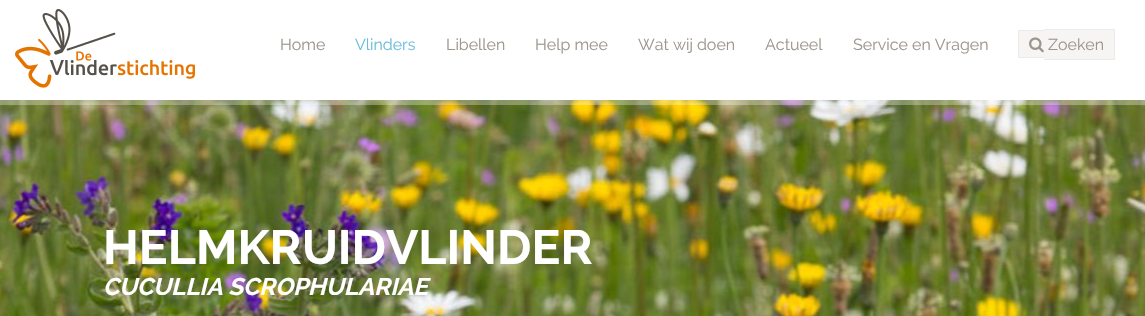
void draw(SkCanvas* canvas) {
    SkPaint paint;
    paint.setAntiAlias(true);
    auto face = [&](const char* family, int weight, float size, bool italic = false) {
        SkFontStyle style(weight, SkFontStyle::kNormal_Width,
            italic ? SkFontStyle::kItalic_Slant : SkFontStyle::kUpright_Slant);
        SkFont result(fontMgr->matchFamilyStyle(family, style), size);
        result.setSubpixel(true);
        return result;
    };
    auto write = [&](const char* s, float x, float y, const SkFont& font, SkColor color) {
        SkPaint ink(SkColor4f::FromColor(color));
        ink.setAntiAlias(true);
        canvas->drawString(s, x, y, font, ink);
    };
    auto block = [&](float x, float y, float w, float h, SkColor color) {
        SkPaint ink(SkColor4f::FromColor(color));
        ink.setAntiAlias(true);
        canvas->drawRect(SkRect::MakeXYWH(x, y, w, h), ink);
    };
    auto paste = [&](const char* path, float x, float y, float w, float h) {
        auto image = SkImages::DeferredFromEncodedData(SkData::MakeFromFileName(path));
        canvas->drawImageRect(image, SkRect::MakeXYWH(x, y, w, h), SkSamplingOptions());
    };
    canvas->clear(SK_ColorWHITE);
    paste("pic1.png", 15, 9, 180, 79);
    auto kFont1 = face("Raleway", 400, 16);
    write("Home", 280, 50, kFont1, SkColorSetRGB(156, 149, 140));
    write("Vlinders", 355, 50, kFont1, SkColorSetRGB(107, 189, 220));
    write("Libellen", 446, 50, kFont1, SkColorSetRGB(156, 149, 140));
    write("Help mee", 535, 50, kFont1, SkColorSetRGB(156, 149, 140));
    write("Wat wij doen", 638, 50, kFont1, SkColorSetRGB(156, 149, 140));
    write("Actueel", 765, 50, kFont1, SkColorSetRGB(156, 149, 140));
    write("Service en Vragen", 853, 50, kFont1, SkColorSetRGB(156, 149, 140));
    block(1019, 31, 25, 26, SkColorSetRGB(246, 245, 244));
    block(1018, 30, 26, 1, SkColorSetRGB(236, 235, 233));
    block(1018, 57, 26, 1, SkColorSetRGB(236, 235, 233));
    block(1018, 30, 1, 28, SkColorSetRGB(236, 235, 233));
    block(1044, 30, 70, 29, SkColorSetRGB(246, 245, 244));
    block(1044, 29, 71, 1, SkColorSetRGB(236, 235, 233));
    block(1114, 29, 1, 31, SkColorSetRGB(236, 235, 233));
    block(1044, 59, 71, 1, SkColorSetRGB(236, 235, 233));
    paste("pic2.png", 1029, 37, 15, 16);
    write("Zoeken", 1048, 50, kFont1, SkColorSetRGB(156, 149, 140));
    paste("pic3.png", 0, 100, 1145, 216);
    block(0, 100, 1145, 5, SkColorSetARGB(77, 255, 255, 255));
    auto kFont2 = face("Raleway", 700, 48);
    write("HELMKRUIDVLINDER", 103, 264, kFont2, SK_ColorWHITE);
    auto kFont3 = face("Raleway", 700, 24, true);
    write("CUCULLIA SCROPHULARIAE", 103, 295, kFont3, SK_ColorWHITE);
}
